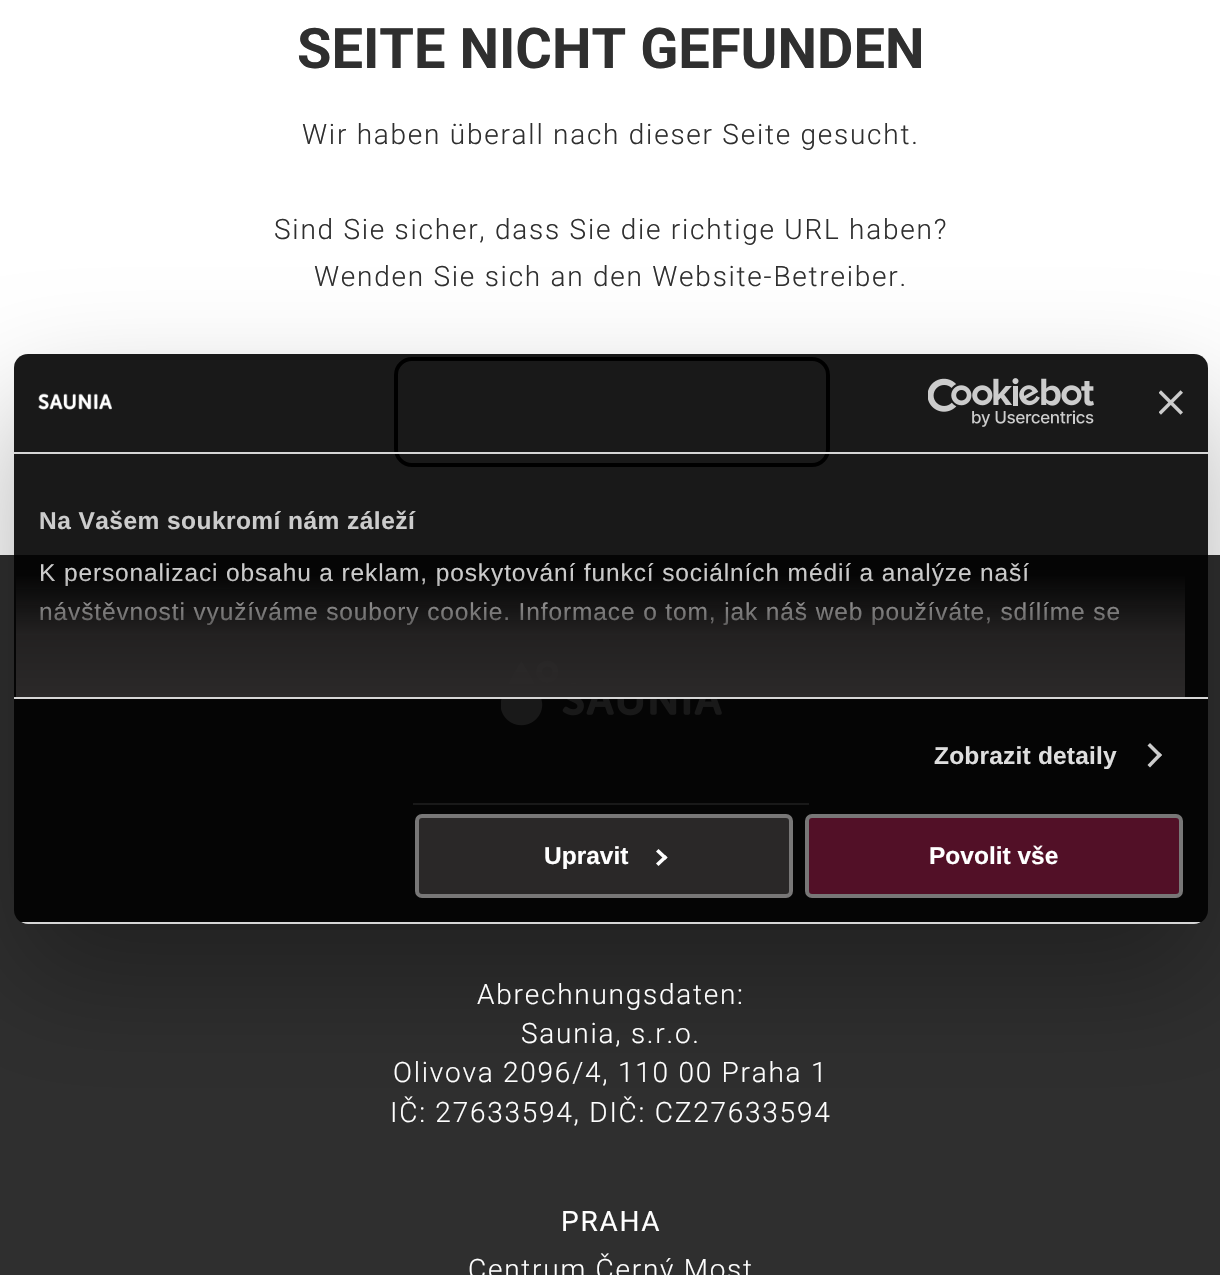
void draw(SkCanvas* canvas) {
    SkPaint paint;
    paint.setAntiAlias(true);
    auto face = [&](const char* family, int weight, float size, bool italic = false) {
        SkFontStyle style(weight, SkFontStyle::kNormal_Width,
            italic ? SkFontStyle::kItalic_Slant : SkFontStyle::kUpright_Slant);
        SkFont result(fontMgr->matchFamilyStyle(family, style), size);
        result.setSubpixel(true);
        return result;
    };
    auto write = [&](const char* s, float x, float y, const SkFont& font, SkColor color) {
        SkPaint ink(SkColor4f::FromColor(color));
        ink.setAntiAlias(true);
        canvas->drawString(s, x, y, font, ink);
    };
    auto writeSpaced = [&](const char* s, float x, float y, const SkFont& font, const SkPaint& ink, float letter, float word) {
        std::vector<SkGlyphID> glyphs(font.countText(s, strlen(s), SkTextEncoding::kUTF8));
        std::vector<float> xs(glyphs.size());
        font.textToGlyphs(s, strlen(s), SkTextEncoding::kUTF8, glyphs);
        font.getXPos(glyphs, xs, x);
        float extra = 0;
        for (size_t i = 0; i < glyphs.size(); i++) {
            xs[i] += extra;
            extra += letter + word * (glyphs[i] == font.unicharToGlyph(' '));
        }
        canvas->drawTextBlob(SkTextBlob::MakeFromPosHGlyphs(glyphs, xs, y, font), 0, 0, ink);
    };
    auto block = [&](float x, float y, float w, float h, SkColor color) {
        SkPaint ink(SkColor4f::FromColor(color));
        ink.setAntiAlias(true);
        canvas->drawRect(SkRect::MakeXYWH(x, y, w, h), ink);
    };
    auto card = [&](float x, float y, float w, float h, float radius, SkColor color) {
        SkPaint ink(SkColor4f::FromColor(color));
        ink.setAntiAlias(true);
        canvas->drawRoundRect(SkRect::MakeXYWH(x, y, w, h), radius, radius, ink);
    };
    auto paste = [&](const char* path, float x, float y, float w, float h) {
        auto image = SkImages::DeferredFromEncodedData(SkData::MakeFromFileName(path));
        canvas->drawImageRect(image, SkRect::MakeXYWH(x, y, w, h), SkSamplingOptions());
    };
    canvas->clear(SK_ColorWHITE);
    auto kFont1 = face("Roboto", 700, 56);
    write("SEITE NICHT GEFUNDEN", 297, 68, kFont1, SkColorSetRGB(47, 47, 47));
    auto kFont2 = face("Roboto", 300, 28);
    paint.setColor(SkColorSetRGB(47, 47, 47));
    writeSpaced("Wir haben überall nach dieser Seite gesucht.", 302, 144, kFont2, paint, 1.75f, 0);
    writeSpaced("Sind Sie sicher, dass Sie die richtige URL haben?", 274, 239, kFont2, paint, 1.75f, 0);
    writeSpaced("Wenden Sie sich an den Website-Betreiber.", 314, 286, kFont2, paint, 1.75f, 0);
    paint.setStyle(SkPaint::kStroke_Style);
    paint.setStrokeWidth(4);
    paint.setColor(SK_ColorBLACK);
    canvas->drawRoundRect(SkRect::MakeXYWH(396, 359, 432, 106), 16, 16, paint);
    block(0, 555, 1220, 720, SkColorSetRGB(47, 47, 47));
    paste("pic4.png", 501, 660, 221, 66);
    block(413, 803, 396, 2, SK_ColorWHITE);
    canvas->save();
    canvas->clipPath(SkPathBuilder(SkPathFillType::kEvenOdd).moveTo(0, 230).lineTo(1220, 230).lineTo(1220, 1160).lineTo(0, 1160).close().moveTo(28, 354).lineTo(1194, 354).cubicTo(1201.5f, 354, 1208, 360.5f, 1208, 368).lineTo(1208, 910).cubicTo(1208, 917.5f, 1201.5f, 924, 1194, 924).lineTo(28, 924).cubicTo(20.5f, 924, 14, 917.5f, 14, 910).lineTo(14, 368).cubicTo(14, 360.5f, 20.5f, 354, 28, 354).close().detach(), true);
    paint.setStyle(SkPaint::kFill_Style);
    paint.setColor(SkColorSetARGB(77, 0, 0, 0));
    paint.setMaskFilter(SkMaskFilter::MakeBlur(kNormal_SkBlurStyle, 59.5f));
    canvas->drawRoundRect(SkRect::MakeXYWH(14, 410, 1194, 570), 14, 14, paint);
    paint.setMaskFilter(nullptr);
    canvas->restore();
    card(14, 354, 1194, 570, 14, SkColorSetARGB(230, 0, 0, 0));
    block(14, 452, 1194, 2, SkColorSetRGB(214, 214, 214));
    paste("pic1.png", 38, 393, 74, 17);
    paste("pic2.png", 928, 378, 166, 49);
    paste("pic3.png", 1159, 390, 24, 25);
    block(14, 697, 1194, 2, SkColorSetRGB(214, 214, 214));
    auto kFont3 = face("Liberation Sans", 700, 24.5f);
    paint.setColor(SkColorSetRGB(204, 204, 204));
    writeSpaced("Na Vašem soukromí nám záleží", 39, 529, kFont3, paint, 0.45f, 0);
    auto kFont4 = face("Liberation Sans", 400, 24.5f);
    writeSpaced("K personalizaci obsahu a reklam, poskytování funkcí sociálních médií a analýze naší", 39, 581, kFont4, paint, 0.88f, 0);
    writeSpaced("návštěvnosti využíváme soubory cookie. Informace o tom, jak náš web používáte, sdílíme se", 39, 620, kFont4, paint, 0.88f, 0);
    {
        const SkColor colors[] = {SkColorSetRGB(42, 40, 40), SkColorSetARGB(204, 42, 40, 40), SkColorSetARGB(0, 42, 40, 40)};
        const float stops[] = {0, 0.5f, 1};
        const SkPoint ends[] = {{600, 697}, {600, 574}};
        paint.setShader(SkGradientShader::MakeLinear(ends, colors, stops, 3, SkTileMode::kClamp));
        paint.setAlpha(255);
    }
    canvas->drawRect(SkRect::MakeXYWH(16, 576, 1169, 121), paint);
    paint.setShader(nullptr);
    paint.setColor(SkColorSetRGB(222, 222, 222));
    writeSpaced("Zobrazit detaily", 934, 764, kFont3, paint, 0.2f, 0);
    paint.setColor(SkColorSetRGB(204, 204, 204));
    canvas->drawPath(SkPathBuilder().moveTo(1150, 743).lineTo(1162, 755).lineTo(1159.5f, 757.5f).lineTo(1147.5f, 745.5f).close().detach(), paint);
    canvas->drawPath(SkPathBuilder().moveTo(1159.5f, 752.5f).lineTo(1162, 755).lineTo(1150, 767.5f).lineTo(1147.5f, 765).close().detach(), paint);
    canvas->save();
    canvas->clipPath(SkPathBuilder().moveTo(28, 354).lineTo(1194, 354).cubicTo(1201.5f, 354, 1208, 360.5f, 1208, 368).lineTo(1208, 910).cubicTo(1208, 917.5f, 1201.5f, 924, 1194, 924).lineTo(28, 924).cubicTo(20.5f, 924, 14, 917.5f, 14, 910).lineTo(14, 368).cubicTo(14, 360.5f, 20.5f, 354, 28, 354).close().detach(), true);
    block(14, 922, 1194, 2, SkColorSetRGB(214, 214, 214));
    canvas->restore();
    paint.setColor(SkColorSetRGB(42, 40, 40));
    canvas->drawRoundRect(SkRect::MakeXYWH(417, 816, 374, 80), 5, 5, paint);
    paint.setStyle(SkPaint::kStroke_Style);
    paint.setColor(SkColorSetRGB(120, 119, 119));
    canvas->drawRoundRect(SkRect::MakeXYWH(417, 816, 374, 80), 5, 5, paint);
    write("Upravit", 544, 864, kFont3, SK_ColorWHITE);
    paint.setStyle(SkPaint::kFill_Style);
    paint.setColor(SkColorSetRGB(254, 254, 254));
    canvas->drawPath(SkPathBuilder().moveTo(658.5f, 849).lineTo(667.5f, 857.5f).lineTo(665, 860).lineTo(656, 851.5f).close().detach(), paint);
    canvas->drawPath(SkPathBuilder().moveTo(665, 855).lineTo(667.5f, 857.5f).lineTo(658.5f, 866).lineTo(656, 863.5f).close().detach(), paint);
    paint.setColor(SkColorSetRGB(82, 16, 39));
    canvas->drawRoundRect(SkRect::MakeXYWH(807, 816, 374, 80), 5, 5, paint);
    paint.setStyle(SkPaint::kStroke_Style);
    paint.setColor(SkColorSetRGB(120, 119, 119));
    canvas->drawRoundRect(SkRect::MakeXYWH(807, 816, 374, 80), 5, 5, paint);
    write("Povolit vše", 929, 864, kFont3, SK_ColorWHITE);
    paint.setStyle(SkPaint::kFill_Style);
    paint.setColor(SK_ColorWHITE);
    writeSpaced("Abrechnungsdaten:", 477, 1004, kFont2, paint, 1.75f, 0);
    writeSpaced("Saunia, s.r.o.", 521, 1043, kFont2, paint, 1.75f, 0);
    writeSpaced("Olivova 2096/4, 110 00 Praha 1", 393, 1082, kFont2, paint, 1.75f, 0);
    writeSpaced("IČ: 27633594, DIČ: CZ27633594", 390, 1122, kFont2, paint, 1.75f, 0);
    auto kFont5 = face("Roboto", 400, 28);
    writeSpaced("PRAHA", 561, 1231, kFont5, paint, 1.75f, 0);
    writeSpaced("Centrum Černý Most", 468, 1279, kFont2, paint, 1.75f, 0);
}
